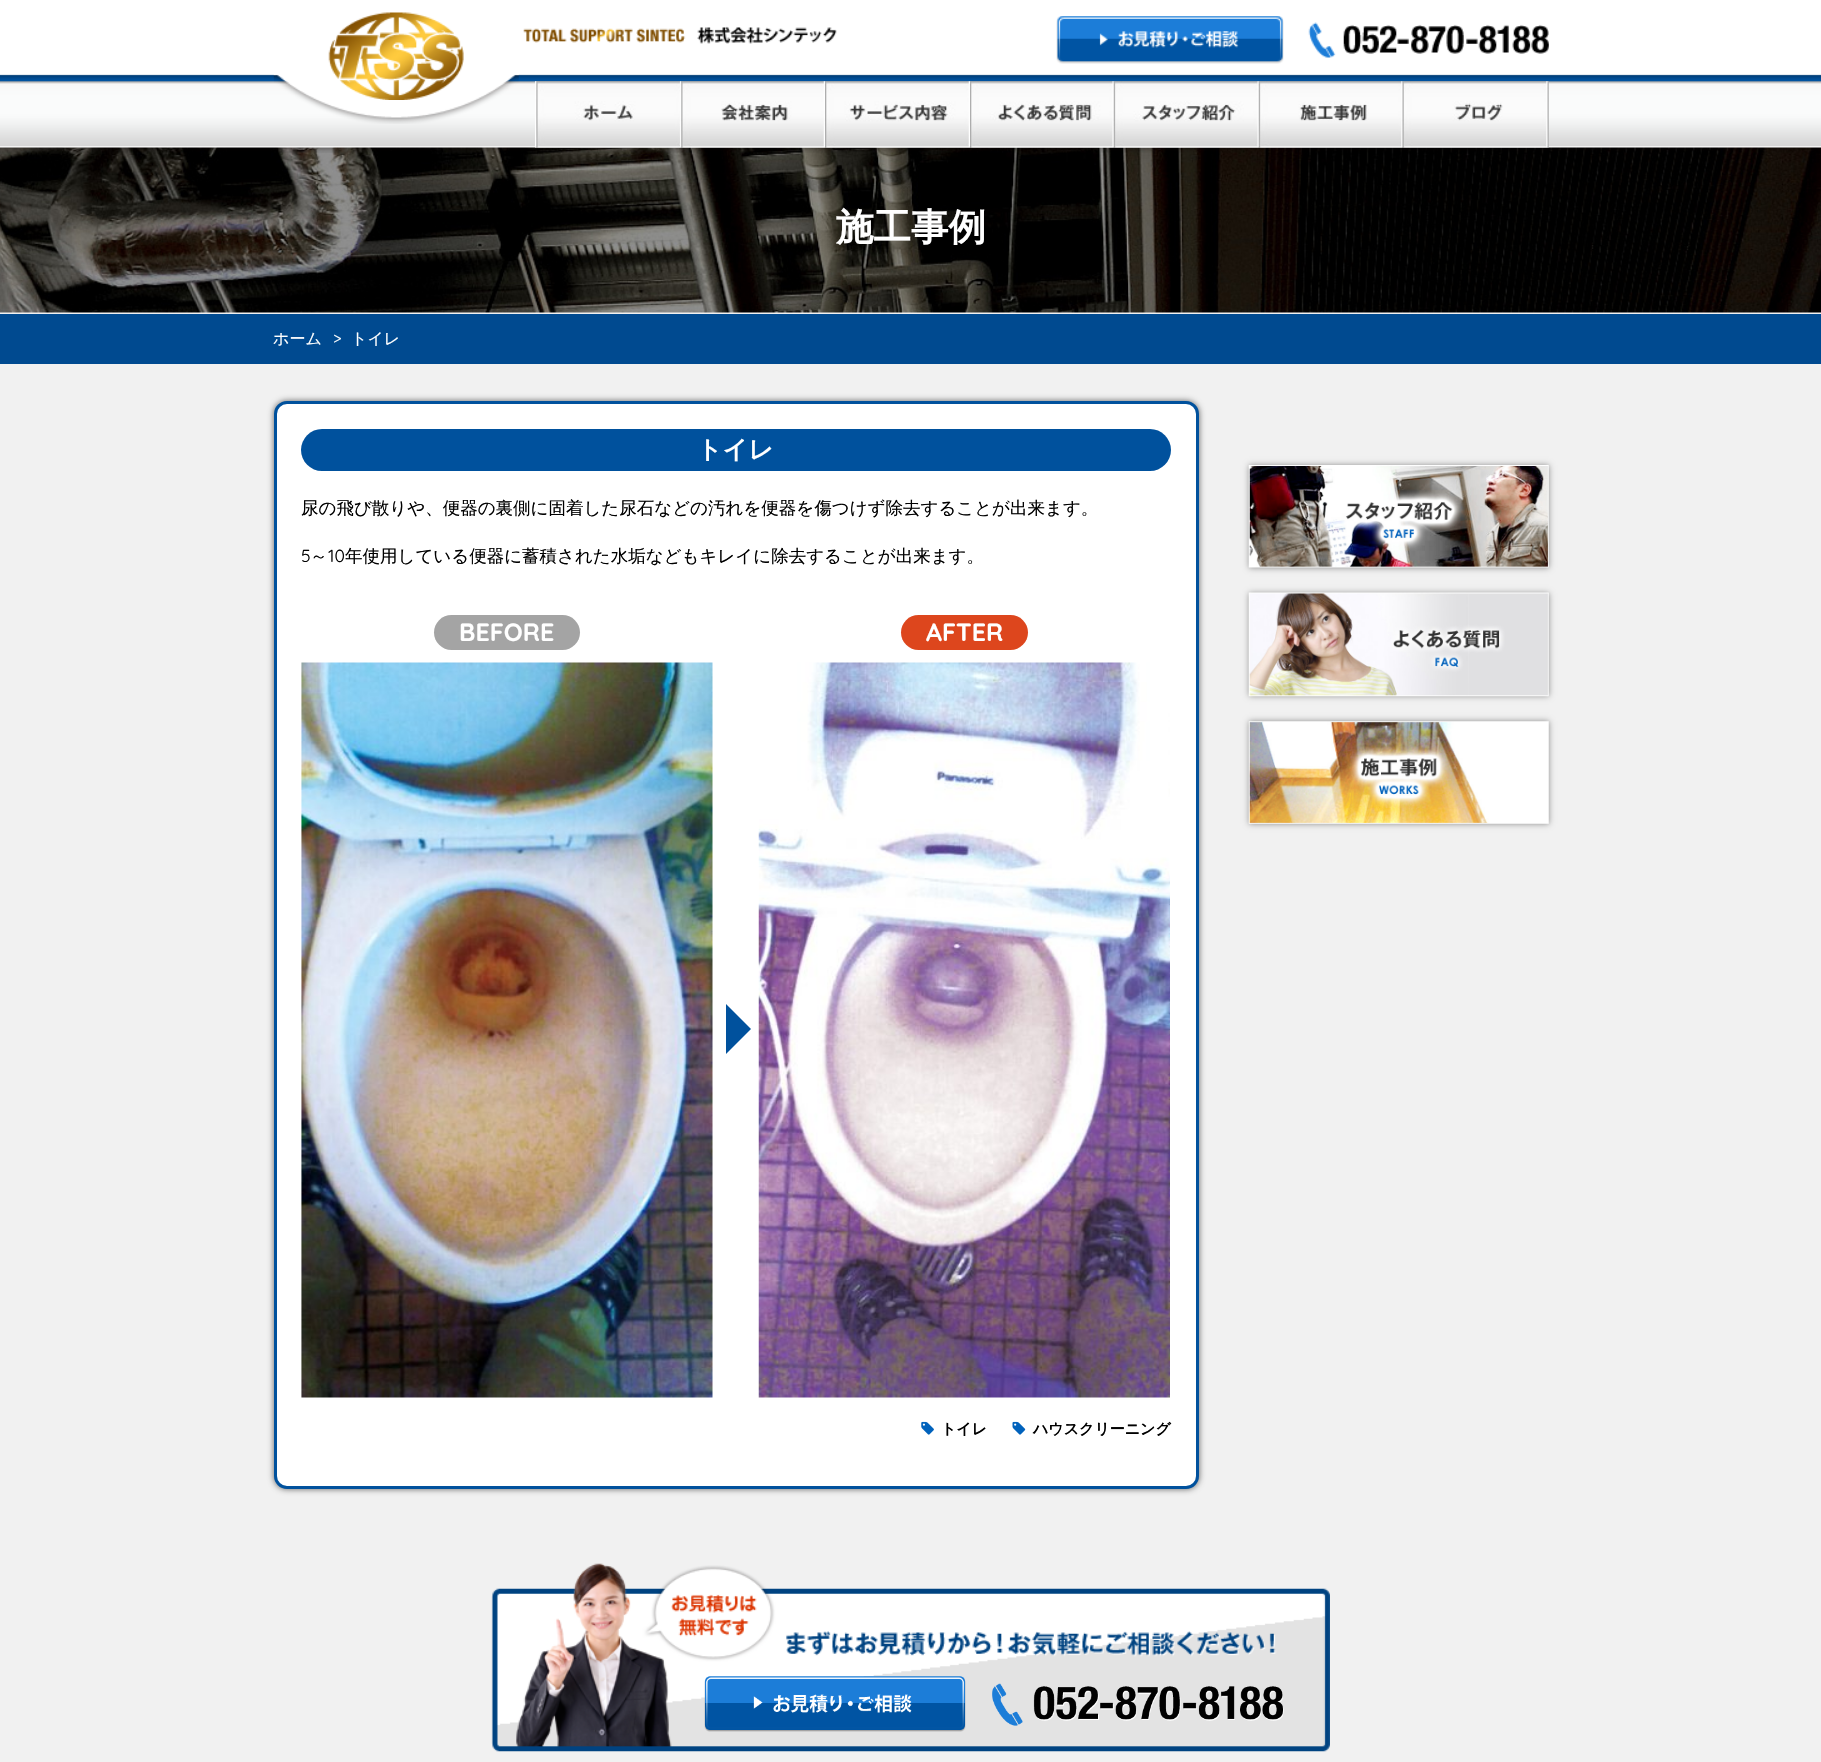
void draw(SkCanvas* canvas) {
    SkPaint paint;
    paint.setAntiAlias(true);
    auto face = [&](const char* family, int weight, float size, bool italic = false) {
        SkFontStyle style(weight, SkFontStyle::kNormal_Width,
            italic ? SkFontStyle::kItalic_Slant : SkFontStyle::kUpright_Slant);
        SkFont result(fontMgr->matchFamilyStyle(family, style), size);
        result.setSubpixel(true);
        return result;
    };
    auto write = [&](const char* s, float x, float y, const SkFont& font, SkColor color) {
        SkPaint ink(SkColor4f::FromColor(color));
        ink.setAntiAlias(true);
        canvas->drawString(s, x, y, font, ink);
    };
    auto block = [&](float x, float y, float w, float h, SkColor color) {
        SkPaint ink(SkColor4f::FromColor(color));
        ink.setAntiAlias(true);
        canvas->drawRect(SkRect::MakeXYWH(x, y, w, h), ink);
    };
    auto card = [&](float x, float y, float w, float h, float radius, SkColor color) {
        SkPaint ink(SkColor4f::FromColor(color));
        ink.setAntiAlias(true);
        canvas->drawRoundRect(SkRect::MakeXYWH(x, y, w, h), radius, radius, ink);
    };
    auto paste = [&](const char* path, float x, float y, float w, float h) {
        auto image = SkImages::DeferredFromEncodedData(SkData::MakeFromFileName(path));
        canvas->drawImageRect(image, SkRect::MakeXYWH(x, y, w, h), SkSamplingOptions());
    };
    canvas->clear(SkColorSetRGB(241, 241, 241));
    paste("pic14.png", 0, 147, 1821, 166);
    paste("pic1.png", 0, 0, 1821, 153);
    paste("pic2.png", 273, 74, 246, 50);
    paste("pic3.png", 328, 12, 136, 88);
    paste("pic4.png", 523, 26, 314, 18);
    paste("pic5.png", 1056, 16, 228, 48);
    paste("pic6.png", 1308, 22, 241, 36);
    paste("pic7.png", 535, 81, 147, 67);
    paste("pic8.png", 681, 81, 144, 67);
    paste("pic9.png", 825, 81, 145, 67);
    paste("pic10.png", 970, 81, 144, 67);
    paste("pic11.png", 1113, 81, 146, 67);
    paste("pic12.png", 1258, 81, 145, 67);
    paste("pic13.png", 1402, 81, 147, 67);
    auto kFont1 = face("WenQuanYi Zen Hei", 700, 37.5f);
    write("施工事例", 836, 240, kFont1, SK_ColorWHITE);
    block(0, 314, 1821, 50, SkColorSetRGB(0, 74, 144));
    auto kFont2 = face("WenQuanYi Zen Hei", 500, 16);
    write("ホーム", 273, 344, kFont2, SK_ColorWHITE);
    auto kFont3 = face("Quicksand", 400, 16);
    write(">", 333, 344, kFont3, SK_ColorWHITE);
    write("トイレ", 351, 344, kFont2, SK_ColorWHITE);
    paint.setColor(SkColorSetARGB(153, 0, 0, 0));
    paint.setMaskFilter(SkMaskFilter::MakeBlur(kNormal_SkBlurStyle, 3));
    canvas->drawRoundRect(SkRect::MakeXYWH(274, 401, 925, 1088), 13, 13, paint);
    paint.setMaskFilter(nullptr);
    paint.setColor(SK_ColorWHITE);
    canvas->drawRoundRect(SkRect::MakeXYWH(275.5f, 402.5f, 922, 1085), 11.5f, 11.5f, paint);
    paint.setStyle(SkPaint::kStroke_Style);
    paint.setStrokeWidth(3);
    paint.setColor(SkColorSetRGB(0, 81, 157));
    canvas->drawRoundRect(SkRect::MakeXYWH(275.5f, 402.5f, 922, 1085), 11.5f, 11.5f, paint);
    card(301, 429, 870, 42, 21, SkColorSetRGB(0, 81, 157));
    auto kFont4 = face("WenQuanYi Zen Hei", 700, 25);
    write("トイレ", 697, 458, kFont4, SK_ColorWHITE);
    auto kFont5 = face("WenQuanYi Zen Hei", 500, 17.5f);
    write("尿の飛び散りや、便器の裏側に固着した尿石などの汚れを便器を傷つけず除去することが出来ます。", 301, 514, kFont5, SK_ColorBLACK);
    auto kFont6 = face("Quicksand", 400, 17.5f);
    write("5", 301, 562, kFont6, SK_ColorBLACK);
    write("～", 310, 562, kFont5, SK_ColorBLACK);
    write("10", 328, 562, kFont6, SK_ColorBLACK);
    write("年使用している便器に蓄積された水垢などもキレイに除去することが出来ます。", 345, 562, kFont5, SK_ColorBLACK);
    card(434, 615, 146, 35, 17.5f, SkColorSetRGB(164, 164, 164));
    auto kFont7 = face("Quicksand", 700, 25);
    write("BEFORE", 459, 641, kFont7, SK_ColorWHITE);
    paste("pic15.png", 301, 662, 412, 736);
    paint.setStyle(SkPaint::kFill_Style);
    canvas->drawPath(SkPathBuilder().moveTo(726, 1054).lineTo(726, 1004).lineTo(751, 1029).close().detach(), paint);
    card(901, 615, 127, 35, 17.5f, SkColorSetRGB(221, 70, 29));
    write("AFTER", 926, 641, kFont7, SK_ColorWHITE);
    paste("pic16.png", 758, 662, 412, 736);
    paste("pic17.png", 921, 1421, 13, 14);
    auto kFont8 = face("WenQuanYi Zen Hei", 700, 15);
    write("トイレ", 941, 1434, kFont8, SK_ColorBLACK);
    paste("pic18.png", 1012, 1421, 14, 14);
    write("ハウスクリーニング", 1033, 1434, kFont8, SK_ColorBLACK);
    paint.setColor(SkColorSetARGB(102, 0, 0, 0));
    paint.setMaskFilter(SkMaskFilter::MakeBlur(kNormal_SkBlurStyle, 3));
    canvas->drawRect(SkRect::MakeXYWH(1249, 465, 300, 103), paint);
    paint.setMaskFilter(nullptr);
    paste("pic19.png", 1248, 465, 301, 103);
    paint.setMaskFilter(SkMaskFilter::MakeBlur(kNormal_SkBlurStyle, 3));
    canvas->drawRect(SkRect::MakeXYWH(1249, 593, 300, 103), paint);
    paint.setMaskFilter(nullptr);
    paste("pic20.png", 1248, 592, 301, 105);
    paint.setMaskFilter(SkMaskFilter::MakeBlur(kNormal_SkBlurStyle, 3));
    canvas->drawRect(SkRect::MakeXYWH(1249, 721, 300, 103), paint);
    paint.setMaskFilter(nullptr);
    paste("pic21.png", 1248, 721, 301, 103);
    paste("pic22.png", 491, 1563, 839, 189);
    paste("pic23.png", 704, 1676, 262, 56);
    paste("pic24.png", 992, 1683, 292, 43);
}
